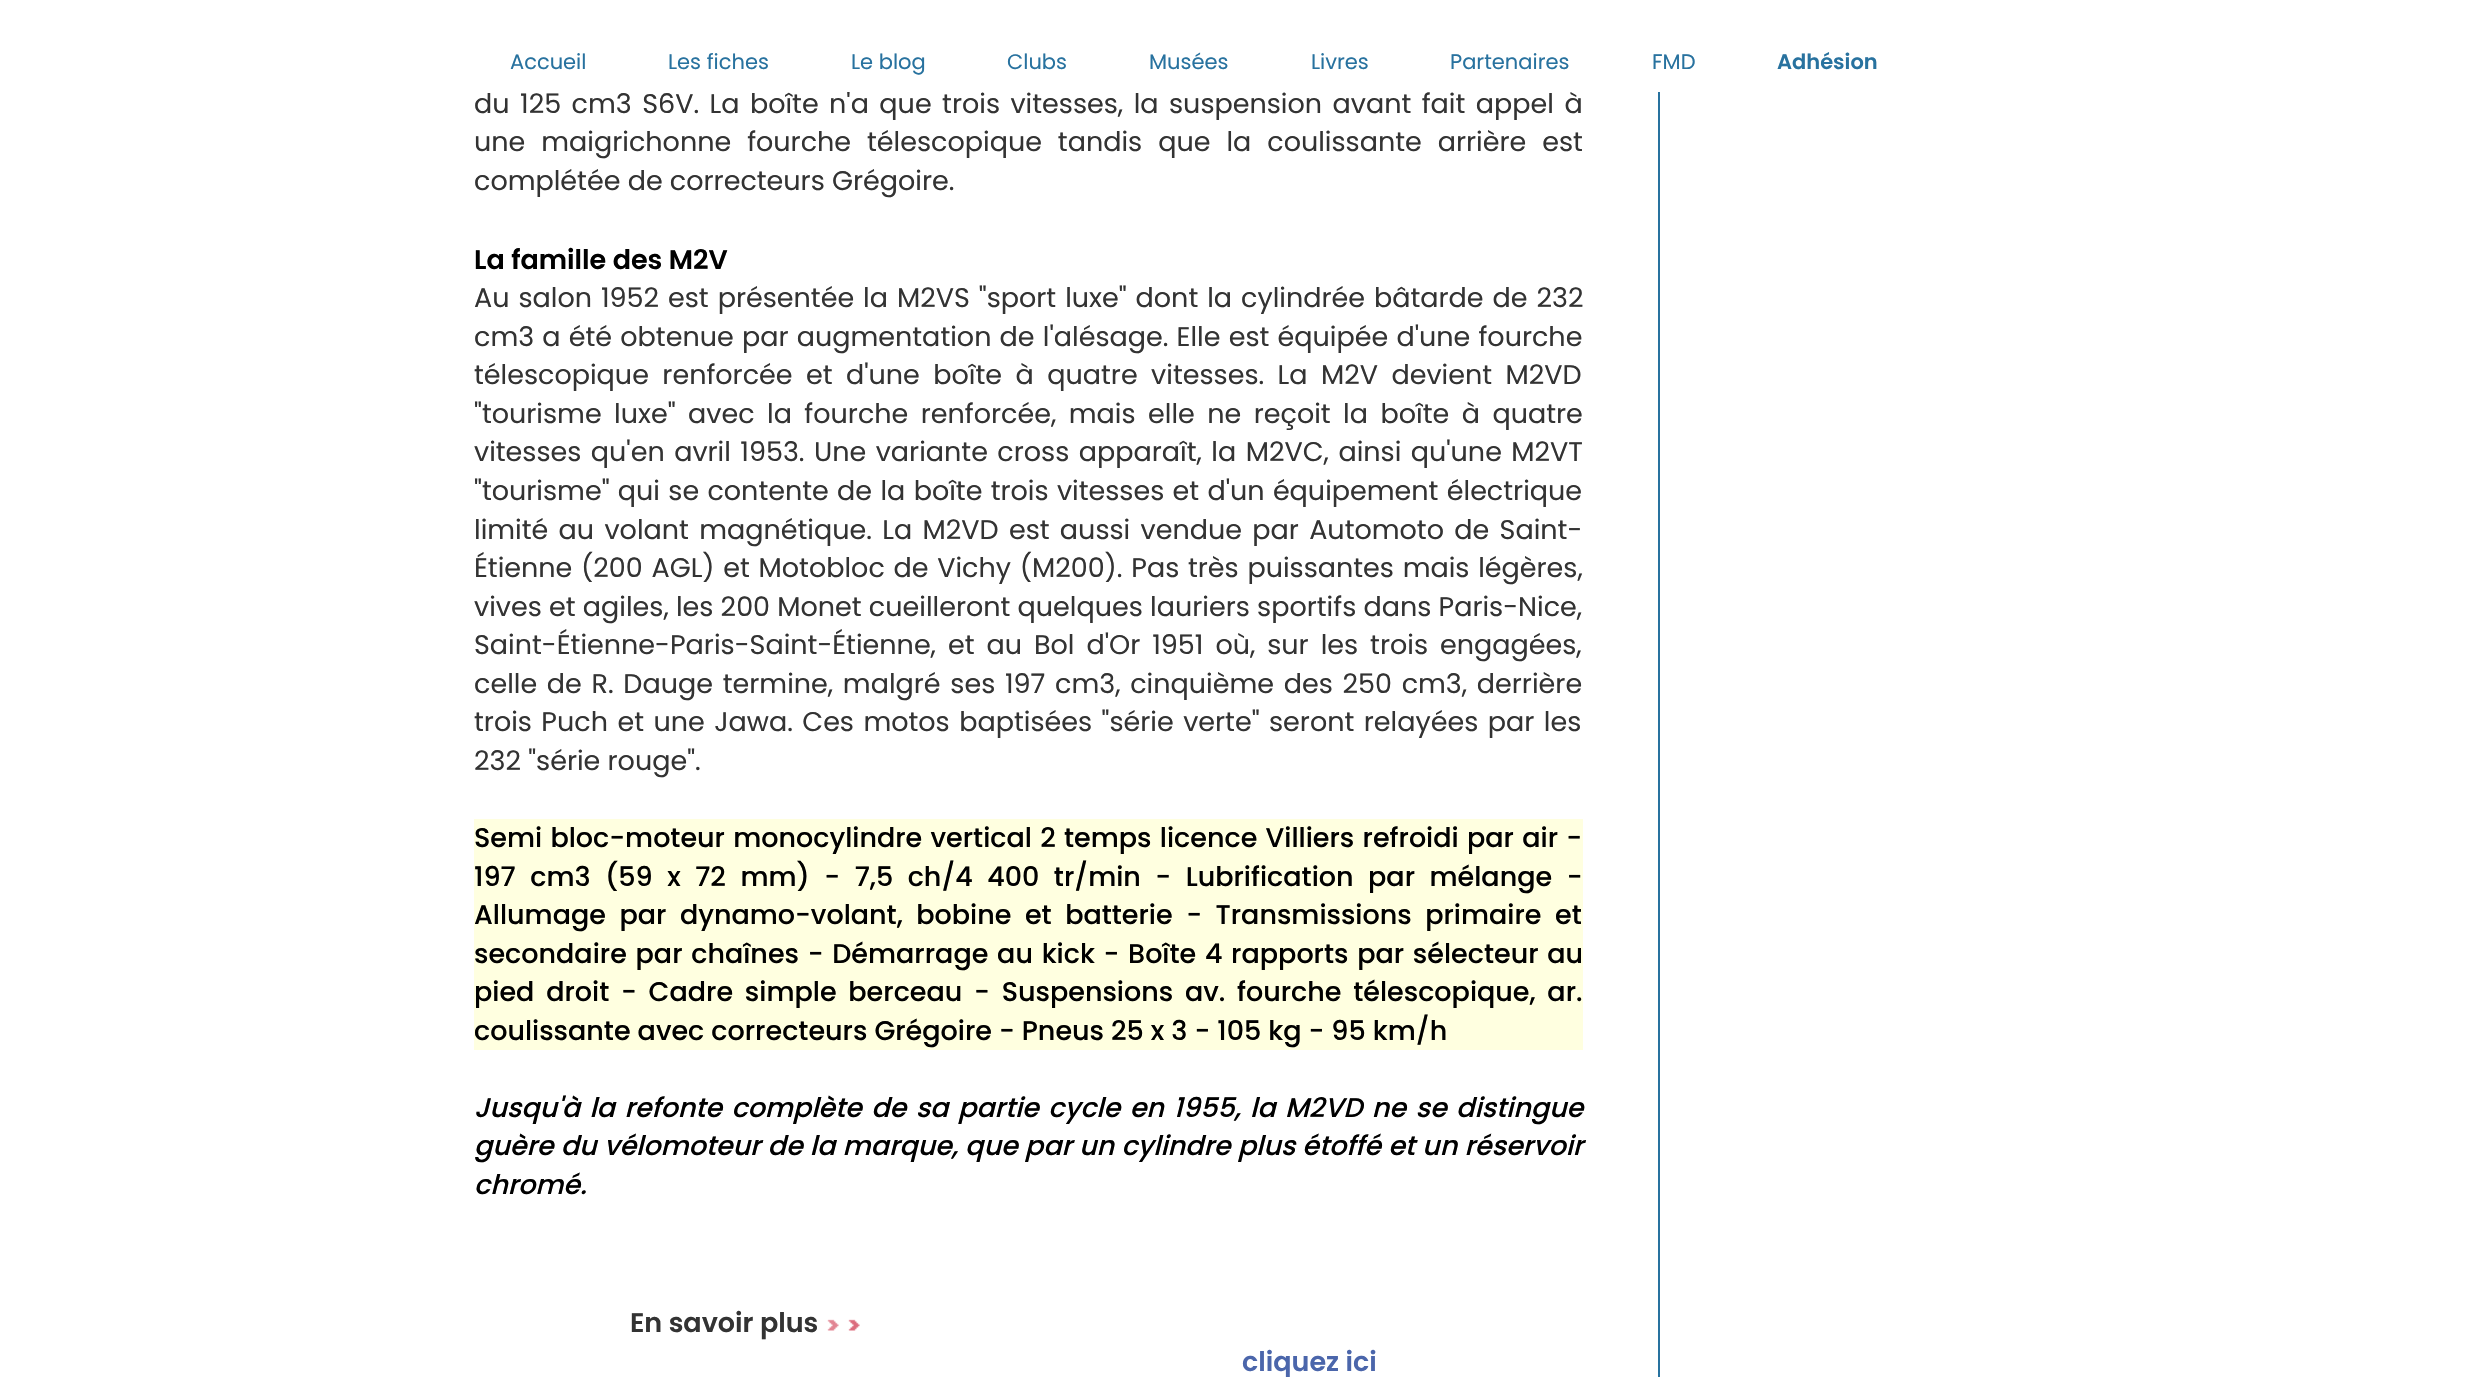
void draw(SkCanvas* canvas) {
    SkPaint paint;
    paint.setAntiAlias(true);
    auto face = [&](const char* family, int weight, float size, bool italic = false) {
        SkFontStyle style(weight, SkFontStyle::kNormal_Width,
            italic ? SkFontStyle::kItalic_Slant : SkFontStyle::kUpright_Slant);
        SkFont result(fontMgr->matchFamilyStyle(family, style), size);
        result.setSubpixel(true);
        return result;
    };
    auto write = [&](const char* s, float x, float y, const SkFont& font, SkColor color) {
        SkPaint ink(SkColor4f::FromColor(color));
        ink.setAntiAlias(true);
        canvas->drawString(s, x, y, font, ink);
    };
    auto writeSpaced = [&](const char* s, float x, float y, const SkFont& font, const SkPaint& ink, float letter, float word) {
        std::vector<SkGlyphID> glyphs(font.countText(s, strlen(s), SkTextEncoding::kUTF8));
        std::vector<float> xs(glyphs.size());
        font.textToGlyphs(s, strlen(s), SkTextEncoding::kUTF8, glyphs);
        font.getXPos(glyphs, xs, x);
        float extra = 0;
        for (size_t i = 0; i < glyphs.size(); i++) {
            xs[i] += extra;
            extra += letter + word * (glyphs[i] == font.unicharToGlyph(' '));
        }
        canvas->drawTextBlob(SkTextBlob::MakeFromPosHGlyphs(glyphs, xs, y, font), 0, 0, ink);
    };
    auto block = [&](float x, float y, float w, float h, SkColor color) {
        SkPaint ink(SkColor4f::FromColor(color));
        ink.setAntiAlias(true);
        canvas->drawRect(SkRect::MakeXYWH(x, y, w, h), ink);
    };
    auto paste = [&](const char* path, float x, float y, float w, float h) {
        auto image = SkImages::DeferredFromEncodedData(SkData::MakeFromFileName(path));
        canvas->drawImageRect(image, SkRect::MakeXYWH(x, y, w, h), SkSamplingOptions());
    };
    canvas->clear(SK_ColorWHITE);
    auto kFont1 = face("Poppins", 400, 27);
    paint.setColor(SkColorSetRGB(51, 51, 51));
    writeSpaced("du 125 cm3 S6V. La boîte n'a que trois vitesses, la suspension avant fait appel à", 474, 113, kFont1, paint, 0, 3.25f);
    block(847, 91, 3, 1, SK_ColorWHITE);
    auto kFont2 = face("Poppins", 400, 21);
    write("Accueil", 510, 69, kFont2, SkColorSetRGB(40, 114, 159));
    write("Les fiches", 668, 69, kFont2, SkColorSetRGB(40, 114, 159));
    write("Le blog", 851, 69, kFont2, SkColorSetRGB(40, 114, 159));
    write("Clubs", 1007, 69, kFont2, SkColorSetRGB(40, 114, 159));
    write("Musées", 1149, 69, kFont2, SkColorSetRGB(40, 114, 159));
    write("Livres", 1311, 69, kFont2, SkColorSetRGB(40, 114, 159));
    write("Partenaires", 1450, 69, kFont2, SkColorSetRGB(40, 114, 159));
    write("FMD", 1652, 69, kFont2, SkColorSetRGB(40, 114, 159));
    auto kFont3 = face("Poppins", 600, 21);
    write("Adhésion", 1777, 69, kFont3, SkColorSetRGB(40, 114, 159));
    block(1658, 92, 2, 1285, SkColorSetRGB(40, 114, 159));
    writeSpaced("une maigrichonne fourche télescopique tandis que la coulissante arrière est", 474, 151, kFont1, paint, 0, 8.75f);
    write("complétée de correcteurs Grégoire.", 474, 190, kFont1, SkColorSetRGB(51, 51, 51));
    auto kFont4 = face("Poppins", 600, 27);
    write("La famille des M2V", 474, 269, kFont4, SK_ColorBLACK);
    writeSpaced("Au salon 1952 est présentée la M2VS \"sport luxe\" dont la cylindrée bâtarde de 232", 474, 307, kFont1, paint, 0, 1.75f);
    writeSpaced("cm3 a été obtenue par augmentation de l'alésage. Elle est équipée d'une fourche", 474, 346, kFont1, paint, 0, 1);
    writeSpaced("télescopique renforcée et d'une boîte à quatre vitesses. La M2V devient M2VD", 474, 384, kFont1, paint, 0, 6.25f);
    writeSpaced("\"tourisme luxe\" avec la fourche renforcée, mais elle ne reçoit la boîte à quatre", 474, 423, kFont1, paint, 0, 5.25f);
    writeSpaced("vitesses qu'en avril 1953. Une variante cross apparaît, la M2VC, ainsi qu'une M2VT", 474, 461, kFont1, paint, 0, 2.25f);
    writeSpaced("\"tourisme\" qui se contente de la boîte trois vitesses et d'un équipement électrique", 474, 500, kFont1, paint, 0, 1.1f);
    writeSpaced("limité au volant magnétique. La M2VD est aussi vendue par Automoto de Saint-", 474, 539, kFont1, paint, 0, 3.1f);
    writeSpaced("Étienne (200 AGL) et Motobloc de Vichy (M200). Pas très puissantes mais légères,", 474, 577, kFont1, paint, 0, 1.5f);
    write("vives et agiles, les 200 Monet cueilleront quelques lauriers sportifs dans Paris-Nice,", 474, 616, kFont1, SkColorSetRGB(51, 51, 51));
    writeSpaced("Saint-Étienne-Paris-Saint-Étienne, et au Bol d'Or 1951 où, sur les trois engagées,", 474, 654, kFont1, paint, 0, 4.75f);
    writeSpaced("celle de R. Dauge termine, malgré ses 197 cm3, cinquième des 250 cm3, derrière", 474, 693, kFont1, paint, 0, 2.5f);
    writeSpaced("trois Puch et une Jawa. Ces motos baptisées \"série verte\" seront relayées par les", 474, 731, kFont1, paint, 0, 2.25f);
    write("232 \"série rouge\".", 474, 770, kFont1, SkColorSetRGB(51, 51, 51));
    block(474, 819, 1109, 231, SkColorSetRGB(255, 255, 224));
    auto kFont5 = face("Poppins", 500, 27);
    paint.setColor(SK_ColorBLACK);
    writeSpaced("Semi bloc-moteur monocylindre vertical 2 temps licence Villiers refroidi par air -", 474, 847, kFont5, paint, 0, 1.25f);
    writeSpaced("197 cm3 (59 x 72 mm) - 7,5 ch/4 400 tr/min - Lubrification par mélange -", 474, 886, kFont5, paint, 0, 7.5f);
    writeSpaced("Allumage par dynamo-volant, bobine et batterie - Transmissions primaire et", 474, 924, kFont5, paint, 0, 6.5f);
    writeSpaced("secondaire par chaînes - Démarrage au kick - Boîte 4 rapports par sélecteur au", 474, 963, kFont5, paint, 0, 1.7f);
    writeSpaced("pied droit - Cadre simple berceau - Suspensions av. fourche télescopique, ar.", 474, 1001, kFont5, paint, 0, 4.75f);
    write("coulissante avec correcteurs Grégoire - Pneus 25 x 3 - 105 kg - 95 km/h", 474, 1040, kFont5, SK_ColorBLACK);
    auto kFont6 = face("Poppins", 500, 27, true);
    writeSpaced("Jusqu'à la refonte complète de sa partie cycle en 1955, la M2VD ne se distingue", 474, 1117, kFont6, paint, 0, 2.5f);
    writeSpaced("guère du vélomoteur de la marque, que par un cylindre plus étoffé et un réservoir", 474, 1155, kFont6, paint, 0, 0.25f);
    write("chromé.", 474, 1194, kFont6, SK_ColorBLACK);
    write("En savoir plus", 630, 1332, kFont4, SkColorSetRGB(51, 51, 51));
    paste("pic1.png", 827, 1319, 33, 12);
    write("cliquez ici", 1242, 1371, kFont4, SkColorSetRGB(75, 102, 171));
}
